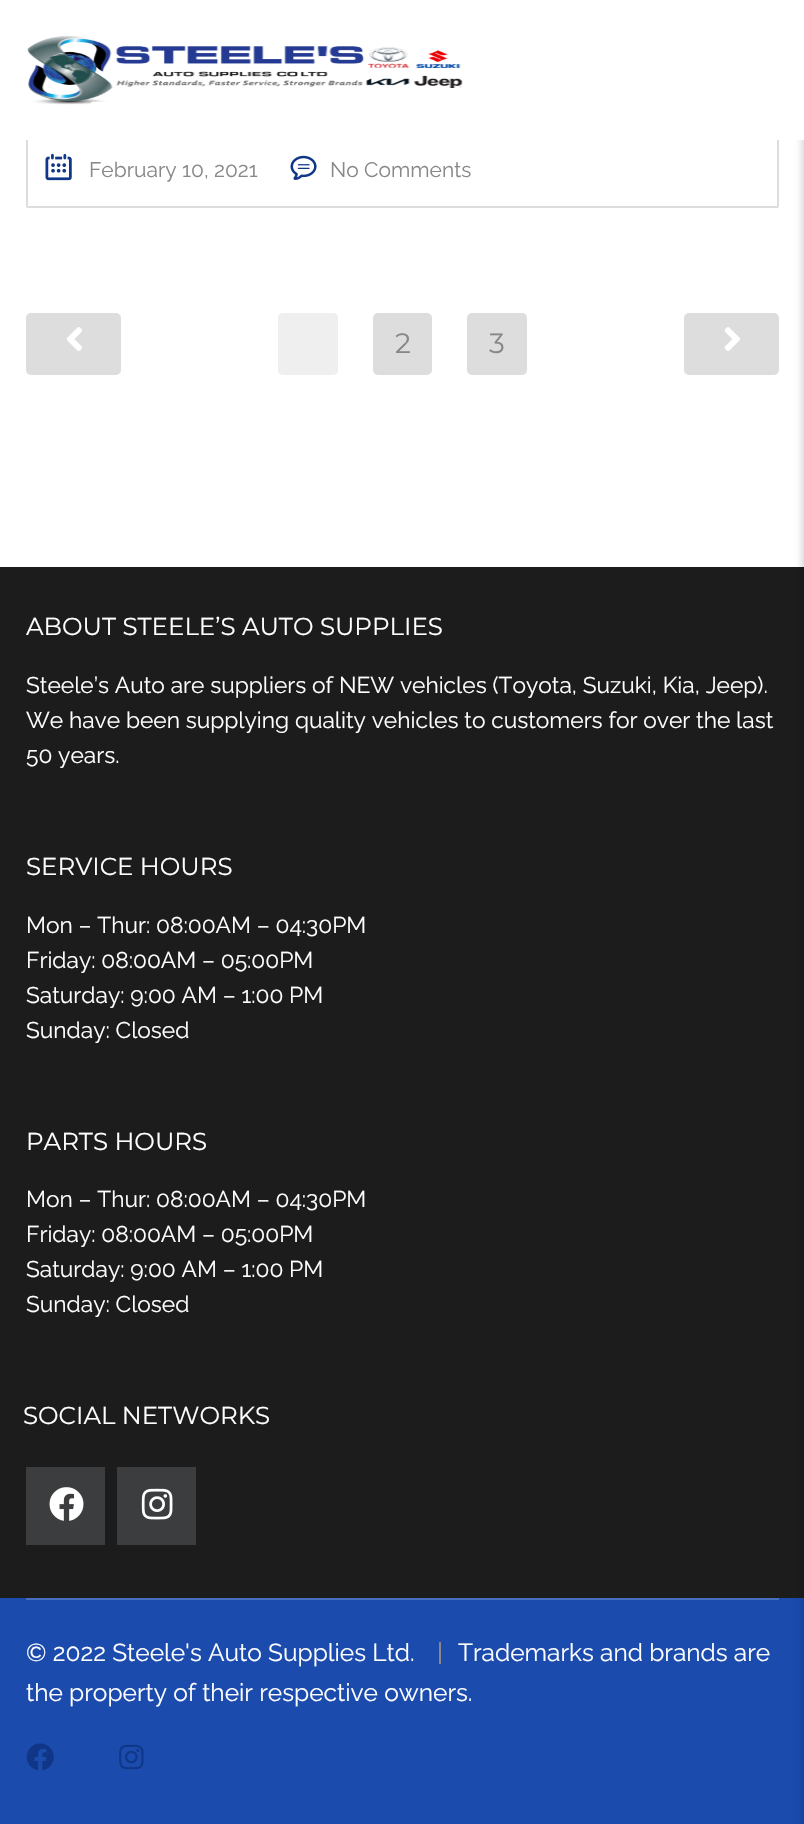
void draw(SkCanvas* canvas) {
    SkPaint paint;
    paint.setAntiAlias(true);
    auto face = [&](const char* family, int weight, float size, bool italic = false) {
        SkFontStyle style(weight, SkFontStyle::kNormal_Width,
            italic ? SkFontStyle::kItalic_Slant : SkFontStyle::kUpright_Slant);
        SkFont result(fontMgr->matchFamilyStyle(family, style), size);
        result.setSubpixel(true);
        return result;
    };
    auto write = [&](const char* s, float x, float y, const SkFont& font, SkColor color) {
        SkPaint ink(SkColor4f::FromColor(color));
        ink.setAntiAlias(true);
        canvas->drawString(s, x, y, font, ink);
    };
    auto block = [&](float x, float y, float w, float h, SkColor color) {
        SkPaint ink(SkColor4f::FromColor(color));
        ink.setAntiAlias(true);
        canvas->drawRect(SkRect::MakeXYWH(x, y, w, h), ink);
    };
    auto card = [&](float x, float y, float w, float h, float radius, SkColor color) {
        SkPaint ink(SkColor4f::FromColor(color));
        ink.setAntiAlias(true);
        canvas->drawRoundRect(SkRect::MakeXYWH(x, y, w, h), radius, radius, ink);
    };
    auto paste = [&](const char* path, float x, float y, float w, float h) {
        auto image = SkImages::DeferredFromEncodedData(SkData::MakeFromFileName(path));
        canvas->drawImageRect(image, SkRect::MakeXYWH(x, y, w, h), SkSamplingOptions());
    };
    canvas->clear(SK_ColorWHITE);
    paint.setStyle(SkPaint::kStroke_Style);
    paint.setStrokeWidth(2);
    paint.setColor(SkColorSetRGB(221, 221, 221));
    canvas->drawRoundRect(SkRect::MakeXYWH(27, -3, 751, 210), 1, 1, paint);
    block(0, 567, 804, 1031, SkColorSetRGB(28, 28, 28));
    block(0, 1598, 804, 226, SkColorSetRGB(26, 75, 173));
    paint.setStyle(SkPaint::kFill_Style);
    paint.setColor(SkColorSetARGB(51, 0, 0, 0));
    paint.setMaskFilter(SkMaskFilter::MakeBlur(kNormal_SkBlurStyle, 4.5f));
    canvas->drawRect(SkRect::MakeXYWH(803, 126, 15, 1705), paint);
    paint.setMaskFilter(nullptr);
    block(26, 0, 778, 140, SK_ColorWHITE);
    paste("pic1.png", 27, 35, 436, 70);
    paste("pic2.png", 45, 153, 27, 28);
    auto kFont1 = face("Raleway", 400, 21);
    write("February 10, 2021", 89, 177, kFont1, SkColorSetRGB(136, 136, 136));
    paste("pic3.png", 290, 155, 27, 25);
    write("No Comments", 330, 177, kFont1, SkColorSetRGB(136, 136, 136));
    card(26, 313, 95, 62, 5, SkColorSetRGB(221, 221, 221));
    paste("pic4.png", 66, 327, 16, 24);
    card(278, 313, 60, 62, 5, SkColorSetRGB(239, 239, 239));
    card(373, 313, 59, 62, 5, SkColorSetRGB(221, 221, 221));
    auto kFont2 = face("Montserrat", 400, 28);
    write("2", 395, 353, kFont2, SkColorSetRGB(136, 136, 136));
    card(467, 313, 60, 62, 5, SkColorSetRGB(221, 221, 221));
    write("3", 489, 353, kFont2, SkColorSetRGB(136, 136, 136));
    card(684, 313, 95, 62, 5, SkColorSetRGB(221, 221, 221));
    paste("pic5.png", 724, 327, 16, 24);
    auto kFont3 = face("Montserrat", 400, 24.5f);
    write("ABOUT STEELE’S AUTO SUPPLIES", 26, 635, kFont3, SK_ColorWHITE);
    auto kFont4 = face("Raleway", 400, 22.75f);
    write("Steele’s Auto are suppliers of NEW vehicles (Toyota, Suzuki, Kia, Jeep).", 26, 693, kFont4, SK_ColorWHITE);
    write("We have been supplying quality vehicles to customers for over the last", 26, 728, kFont4, SK_ColorWHITE);
    write("50 years.", 26, 763, kFont4, SK_ColorWHITE);
    write("SERVICE HOURS", 26, 875, kFont3, SK_ColorWHITE);
    write("Mon – Thur: 08:00AM – 04:30PM", 26, 933, kFont4, SK_ColorWHITE);
    write("Friday: 08:00AM – 05:00PM", 26, 968, kFont4, SK_ColorWHITE);
    write("Saturday: 9:00 AM – 1:00 PM", 26, 1003, kFont4, SK_ColorWHITE);
    write("Sunday: Closed", 26, 1038, kFont4, SK_ColorWHITE);
    write("PARTS HOURS", 26, 1150, kFont3, SK_ColorWHITE);
    write("Mon – Thur: 08:00AM – 04:30PM", 26, 1207, kFont4, SK_ColorWHITE);
    write("Friday: 08:00AM – 05:00PM", 26, 1242, kFont4, SK_ColorWHITE);
    write("Saturday: 9:00 AM – 1:00 PM", 26, 1277, kFont4, SK_ColorWHITE);
    write("Sunday: Closed", 26, 1312, kFont4, SK_ColorWHITE);
    write("SOCIAL NETWORKS", 23, 1424, kFont3, SK_ColorWHITE);
    block(26, 1467, 79, 78, SkColorSetRGB(59, 61, 63));
    paste("pic6.png", 49, 1487, 35, 34);
    block(117, 1467, 79, 78, SkColorSetRGB(59, 61, 63));
    paste("pic7.png", 141, 1488, 32, 32);
    block(26, 1598, 753, 2, SkColorSetRGB(72, 111, 189));
    auto kFont5 = face("Raleway", 400, 24.5f);
    write("© 2022 Steele's Auto Supplies Ltd.", 26, 1661, kFont5, SK_ColorWHITE);
    block(439, 1642, 2, 22, SkColorSetRGB(136, 136, 136));
    write("Trademarks and brands are", 458, 1661, kFont5, SK_ColorWHITE);
    write("the property of their respective owners.", 26, 1701, kFont5, SK_ColorWHITE);
    paste("pic8.png", 26, 1743, 28, 28);
    paste("pic9.png", 119, 1744, 25, 26);
}
